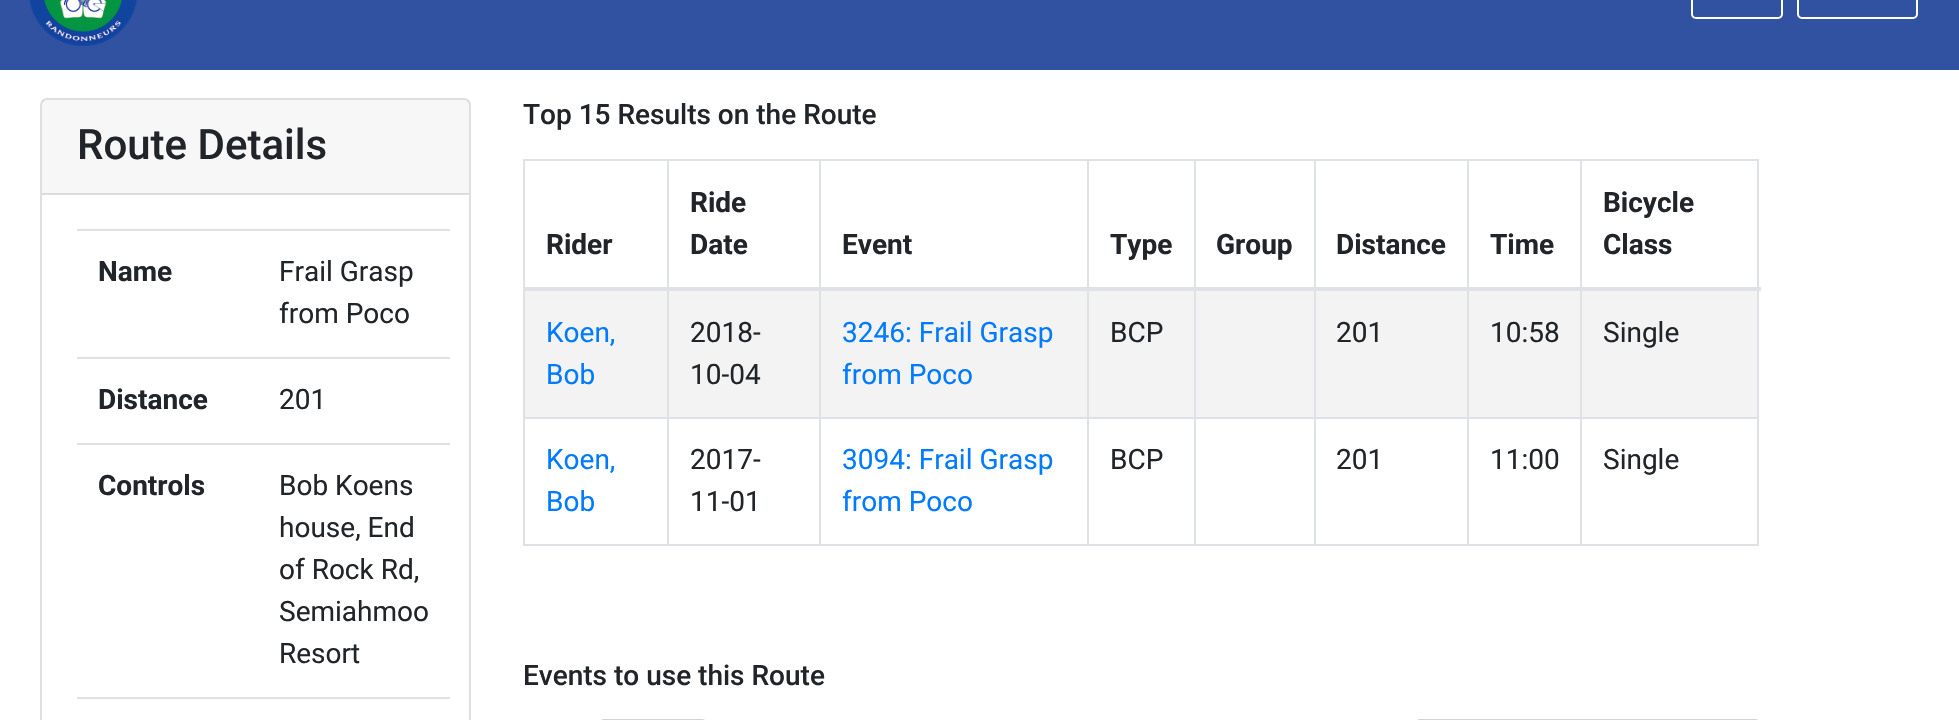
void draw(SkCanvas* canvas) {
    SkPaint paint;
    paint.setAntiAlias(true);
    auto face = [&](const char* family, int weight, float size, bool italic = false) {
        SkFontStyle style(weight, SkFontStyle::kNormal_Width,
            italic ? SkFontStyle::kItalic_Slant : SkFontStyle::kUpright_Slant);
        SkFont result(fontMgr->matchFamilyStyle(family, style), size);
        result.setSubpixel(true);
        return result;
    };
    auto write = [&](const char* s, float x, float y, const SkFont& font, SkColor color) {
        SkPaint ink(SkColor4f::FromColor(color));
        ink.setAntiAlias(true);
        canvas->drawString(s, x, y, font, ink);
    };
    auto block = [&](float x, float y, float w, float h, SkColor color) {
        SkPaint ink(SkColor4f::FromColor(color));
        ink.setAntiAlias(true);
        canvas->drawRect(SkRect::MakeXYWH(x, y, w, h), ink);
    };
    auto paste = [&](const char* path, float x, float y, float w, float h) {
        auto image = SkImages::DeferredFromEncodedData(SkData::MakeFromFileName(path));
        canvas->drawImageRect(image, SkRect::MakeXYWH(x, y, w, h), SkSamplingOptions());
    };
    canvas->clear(SK_ColorWHITE);
    block(0, 0, 1959, 70, SkColorSetRGB(49, 81, 161));
    paste("pic1.png", 29, 0, 108, 46);
    paint.setStyle(SkPaint::kStroke_Style);
    paint.setStrokeWidth(2);
    paint.setColor(SK_ColorWHITE);
    canvas->drawRoundRect(SkRect::MakeXYWH(1692, -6, 90, 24), 4, 4, paint);
    canvas->drawRoundRect(SkRect::MakeXYWH(1798, -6, 119, 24), 4, 4, paint);
    paint.setColor(SkColorSetRGB(223, 223, 223));
    canvas->drawRoundRect(SkRect::MakeXYWH(41, 99, 429, 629), 6, 6, paint);
    block(42, 100, 427, 94, SkColorSetARGB(8, 0, 0, 0));
    block(42, 193, 427, 2, SkColorSetARGB(31, 0, 0, 0));
    auto kFont1 = face("Roboto", 500, 42);
    write("Route Details", 77, 159, kFont1, SkColorSetRGB(33, 37, 41));
    auto kFont2 = face("Roboto", 700, 28);
    write("Name", 98, 281, kFont2, SkColorSetRGB(33, 37, 41));
    block(77, 229, 373, 2, SkColorSetRGB(222, 226, 230));
    auto kFont3 = face("Roboto", 400, 28);
    write("Frail Grasp", 279, 281, kFont3, SkColorSetRGB(33, 37, 41));
    write("from Poco", 279, 323, kFont3, SkColorSetRGB(33, 37, 41));
    write("Distance", 98, 409, kFont2, SkColorSetRGB(33, 37, 41));
    block(77, 357, 373, 2, SkColorSetRGB(222, 226, 230));
    write("201", 279, 409, kFont3, SkColorSetRGB(33, 37, 41));
    write("Controls", 98, 495, kFont2, SkColorSetRGB(33, 37, 41));
    block(77, 443, 373, 2, SkColorSetRGB(222, 226, 230));
    write("Bob Koens", 279, 495, kFont3, SkColorSetRGB(33, 37, 41));
    write("house, End", 279, 537, kFont3, SkColorSetRGB(33, 37, 41));
    write("of Rock Rd,", 279, 579, kFont3, SkColorSetRGB(33, 37, 41));
    write("Semiahmoo", 279, 621, kFont3, SkColorSetRGB(33, 37, 41));
    write("Resort", 279, 663, kFont3, SkColorSetRGB(33, 37, 41));
    block(77, 697, 373, 2, SkColorSetRGB(222, 226, 230));
    auto kFont4 = face("Roboto", 500, 28);
    write("Top 15 Results on the Route", 523, 124, kFont4, SkColorSetRGB(33, 37, 41));
    block(523, 159, 1236, 2, SkColorSetRGB(222, 226, 230));
    block(1757, 159, 2, 387, SkColorSetRGB(222, 226, 230));
    block(523, 544, 1236, 2, SkColorSetRGB(222, 226, 230));
    block(523, 159, 2, 387, SkColorSetRGB(222, 226, 230));
    write("Rider", 546, 254, kFont2, SkColorSetRGB(33, 37, 41));
    write("Ride", 690, 212, kFont2, SkColorSetRGB(33, 37, 41));
    write("Date", 690, 254, kFont2, SkColorSetRGB(33, 37, 41));
    write("Event", 842, 254, kFont2, SkColorSetRGB(33, 37, 41));
    write("Type", 1110, 254, kFont2, SkColorSetRGB(33, 37, 41));
    write("Group", 1216, 254, kFont2, SkColorSetRGB(33, 37, 41));
    write("Distance", 1336, 254, kFont2, SkColorSetRGB(33, 37, 41));
    write("Time", 1490, 254, kFont2, SkColorSetRGB(33, 37, 41));
    block(525, 291, 1232, 126, SkColorSetRGB(243, 243, 243));
    block(1580, 417, 179, 2, SkColorSetRGB(222, 226, 230));
    block(1580, 417, 2, 129, SkColorSetRGB(222, 226, 230));
    block(1467, 417, 115, 2, SkColorSetRGB(222, 226, 230));
    block(1467, 417, 2, 129, SkColorSetRGB(222, 226, 230));
    block(1314, 417, 154, 2, SkColorSetRGB(222, 226, 230));
    block(1314, 417, 2, 129, SkColorSetRGB(222, 226, 230));
    block(1194, 417, 122, 2, SkColorSetRGB(222, 226, 230));
    block(1194, 417, 2, 129, SkColorSetRGB(222, 226, 230));
    block(1087, 417, 108, 2, SkColorSetRGB(222, 226, 230));
    block(1087, 417, 2, 129, SkColorSetRGB(222, 226, 230));
    block(819, 417, 270, 2, SkColorSetRGB(222, 226, 230));
    block(819, 417, 2, 129, SkColorSetRGB(222, 226, 230));
    block(667, 417, 154, 2, SkColorSetRGB(222, 226, 230));
    block(667, 417, 2, 129, SkColorSetRGB(222, 226, 230));
    block(523, 417, 146, 2, SkColorSetRGB(222, 226, 230));
    block(667, 159, 2, 259, SkColorSetRGB(222, 226, 230));
    block(819, 159, 2, 259, SkColorSetRGB(222, 226, 230));
    block(1087, 159, 2, 259, SkColorSetRGB(222, 226, 230));
    block(1194, 159, 2, 259, SkColorSetRGB(222, 226, 230));
    block(1314, 159, 2, 259, SkColorSetRGB(222, 226, 230));
    block(1467, 159, 2, 259, SkColorSetRGB(222, 226, 230));
    block(1580, 159, 2, 259, SkColorSetRGB(222, 226, 230));
    block(523, 287, 1238, 4, SkColorSetRGB(222, 226, 230));
    write("Bicycle", 1603, 212, kFont2, SkColorSetRGB(33, 37, 41));
    write("Class", 1603, 254, kFont2, SkColorSetRGB(33, 37, 41));
    write("Koen,", 546, 342, kFont3, SkColorSetRGB(0, 123, 255));
    write("Bob", 546, 384, kFont3, SkColorSetRGB(0, 123, 255));
    write("2018-", 690, 342, kFont3, SkColorSetRGB(33, 37, 41));
    write("10-04", 690, 384, kFont3, SkColorSetRGB(33, 37, 41));
    write("3246: Frail Grasp", 842, 342, kFont3, SkColorSetRGB(0, 123, 255));
    write("from Poco", 842, 384, kFont3, SkColorSetRGB(0, 123, 255));
    write("BCP", 1110, 342, kFont3, SkColorSetRGB(33, 37, 41));
    write("201", 1336, 342, kFont3, SkColorSetRGB(33, 37, 41));
    write("10:58", 1490, 342, kFont3, SkColorSetRGB(33, 37, 41));
    write("Single", 1603, 342, kFont3, SkColorSetRGB(33, 37, 41));
    write("Koen,", 546, 469, kFont3, SkColorSetRGB(0, 123, 255));
    write("Bob", 546, 511, kFont3, SkColorSetRGB(0, 123, 255));
    write("2017-", 690, 469, kFont3, SkColorSetRGB(33, 37, 41));
    write("11-01", 690, 511, kFont3, SkColorSetRGB(33, 37, 41));
    write("3094: Frail Grasp", 842, 469, kFont3, SkColorSetRGB(0, 123, 255));
    write("from Poco", 842, 511, kFont3, SkColorSetRGB(0, 123, 255));
    write("BCP", 1110, 469, kFont3, SkColorSetRGB(33, 37, 41));
    write("201", 1336, 469, kFont3, SkColorSetRGB(33, 37, 41));
    write("11:00", 1490, 469, kFont3, SkColorSetRGB(33, 37, 41));
    write("Single", 1603, 469, kFont3, SkColorSetRGB(33, 37, 41));
    write("Events to use this Route", 523, 685, kFont4, SkColorSetRGB(33, 37, 41));
    paint.setColor(SkColorSetRGB(206, 212, 218));
    canvas->drawRoundRect(SkRect::MakeXYWH(600, 720, 106, 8), 6, 6, paint);
    canvas->drawRoundRect(SkRect::MakeXYWH(1417, 720, 341, 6), 4, 4, paint);
}
